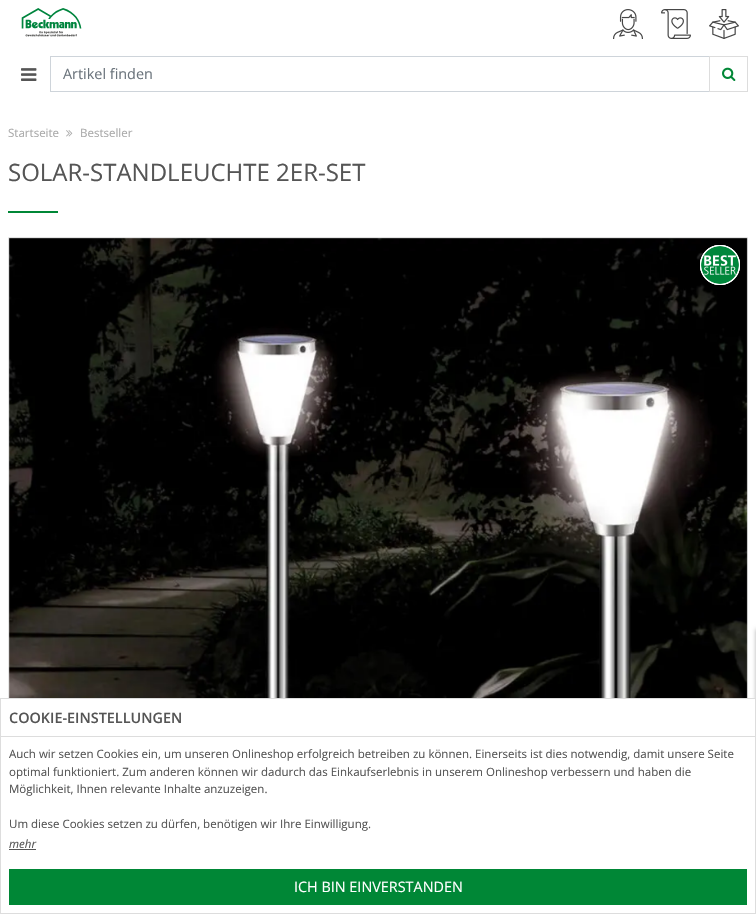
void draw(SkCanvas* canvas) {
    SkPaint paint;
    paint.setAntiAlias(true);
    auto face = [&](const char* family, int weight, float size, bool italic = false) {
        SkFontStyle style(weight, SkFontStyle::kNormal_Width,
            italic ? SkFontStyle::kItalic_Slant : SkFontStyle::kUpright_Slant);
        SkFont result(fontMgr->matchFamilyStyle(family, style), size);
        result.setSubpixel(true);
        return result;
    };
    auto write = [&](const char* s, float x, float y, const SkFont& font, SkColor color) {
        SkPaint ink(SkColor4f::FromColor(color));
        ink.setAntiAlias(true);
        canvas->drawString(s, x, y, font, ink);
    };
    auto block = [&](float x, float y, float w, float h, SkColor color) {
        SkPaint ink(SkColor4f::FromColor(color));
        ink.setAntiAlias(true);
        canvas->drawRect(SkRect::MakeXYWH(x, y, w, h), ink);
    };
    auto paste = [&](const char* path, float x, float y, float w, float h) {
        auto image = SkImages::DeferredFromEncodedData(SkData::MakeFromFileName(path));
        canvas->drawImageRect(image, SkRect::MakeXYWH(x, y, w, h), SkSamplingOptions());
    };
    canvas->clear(SK_ColorWHITE);
    paste("pic1.png", 21, 8, 61, 29);
    paste("pic2.png", 613, 9, 30, 30);
    paste("pic3.png", 661, 9, 30, 30);
    paste("pic4.png", 709, 9, 30, 30);
    paste("pic5.png", 21, 68, 16, 13);
    paint.setStyle(SkPaint::kStroke_Style);
    paint.setStrokeWidth(1);
    paint.setColor(SkColorSetRGB(206, 212, 218));
    canvas->drawRect(SkRect::MakeXYWH(50.5f, 56.5f, 659, 35), paint);
    auto kFont1 = face("Open Sans", 400, 14.4f);
    write("Artikel finden", 63, 79, kFont1, SkColorSetRGB(108, 117, 125));
    paint.setColor(SkColorSetRGB(221, 221, 221));
    canvas->drawRect(SkRect::MakeXYWH(709.5f, 56.5f, 38, 35), paint);
    paste("pic6.png", 722, 67, 14, 14);
    auto kFont2 = face("Open Sans", 400, 11.52f);
    write("Startseite", 8, 137, kFont2, SkColorSetRGB(170, 170, 170));
    paste("pic7.png", 66, 130, 7, 7);
    write("Bestseller", 80, 137, kFont2, SkColorSetRGB(170, 170, 170));
    auto kFont3 = face("Open Sans", 400, 24);
    write("SOLAR-STANDLEUCHTE 2ER-SET", 8, 181, kFont3, SkColorSetRGB(85, 85, 85));
    block(8, 211, 50, 2, SkColorSetRGB(0, 135, 54));
    paint.setColor(SkColorSetRGB(238, 238, 238));
    canvas->drawRect(SkRect::MakeXYWH(8.5f, 237.5f, 739, 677), paint);
    paste("pic8.png", 8, 237, 740, 461);
    paste("pic9.png", 700, 245, 40, 40);
    paint.setStyle(SkPaint::kFill_Style);
    paint.setColor(SkColorSetARGB(77, 0, 0, 0));
    paint.setMaskFilter(SkMaskFilter::MakeBlur(kNormal_SkBlurStyle, 2));
    canvas->drawRect(SkRect::MakeXYWH(756, 629, 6, 163), paint);
    paint.setMaskFilter(nullptr);
    block(8, 699, 747, 214, SK_ColorWHITE);
    paint.setStyle(SkPaint::kStroke_Style);
    paint.setColor(SkColorSetRGB(221, 221, 221));
    canvas->drawRect(SkRect::MakeXYWH(0.5f, 698.5f, 755, 215), paint);
    block(1, 736, 754, 1, SkColorSetRGB(221, 221, 221));
    auto kFont4 = face("Open Sans", 600, 14.4f);
    write("COOKIE-EINSTELLUNGEN", 9, 723, kFont4, SkColorSetRGB(85, 85, 85));
    write("Auch wir setzen Cookies ein, um unseren Onlineshop erfolgreich betreiben zu können. Einerseits ist dies notwendig, damit unsere Seite", 9, 758, kFont2, SkColorSetRGB(85, 85, 85));
    write("optimal funktioniert. Zum anderen können wir dadurch das Einkaufserlebnis in unserem Onlineshop verbessern und haben die", 9, 776, kFont2, SkColorSetRGB(85, 85, 85));
    write("Möglichkeit, Ihnen relevante Inhalte anzuzeigen.", 9, 793, kFont2, SkColorSetRGB(85, 85, 85));
    write("Um diese Cookies setzen zu dürfen, benötigen wir Ihre Einwilligung.", 9, 828, kFont2, SkColorSetRGB(85, 85, 85));
    auto kFont5 = face("Open Sans", 400, 11.52f, true);
    write("mehr", 9, 848, kFont5, SkColorSetRGB(85, 85, 85));
    block(9, 849, 27, 1, SkColorSetRGB(85, 85, 85));
    block(9, 869, 738, 36, SkColorSetRGB(0, 135, 54));
    write("ICH BIN EINVERSTANDEN", 294, 892, kFont1, SK_ColorWHITE);
}
